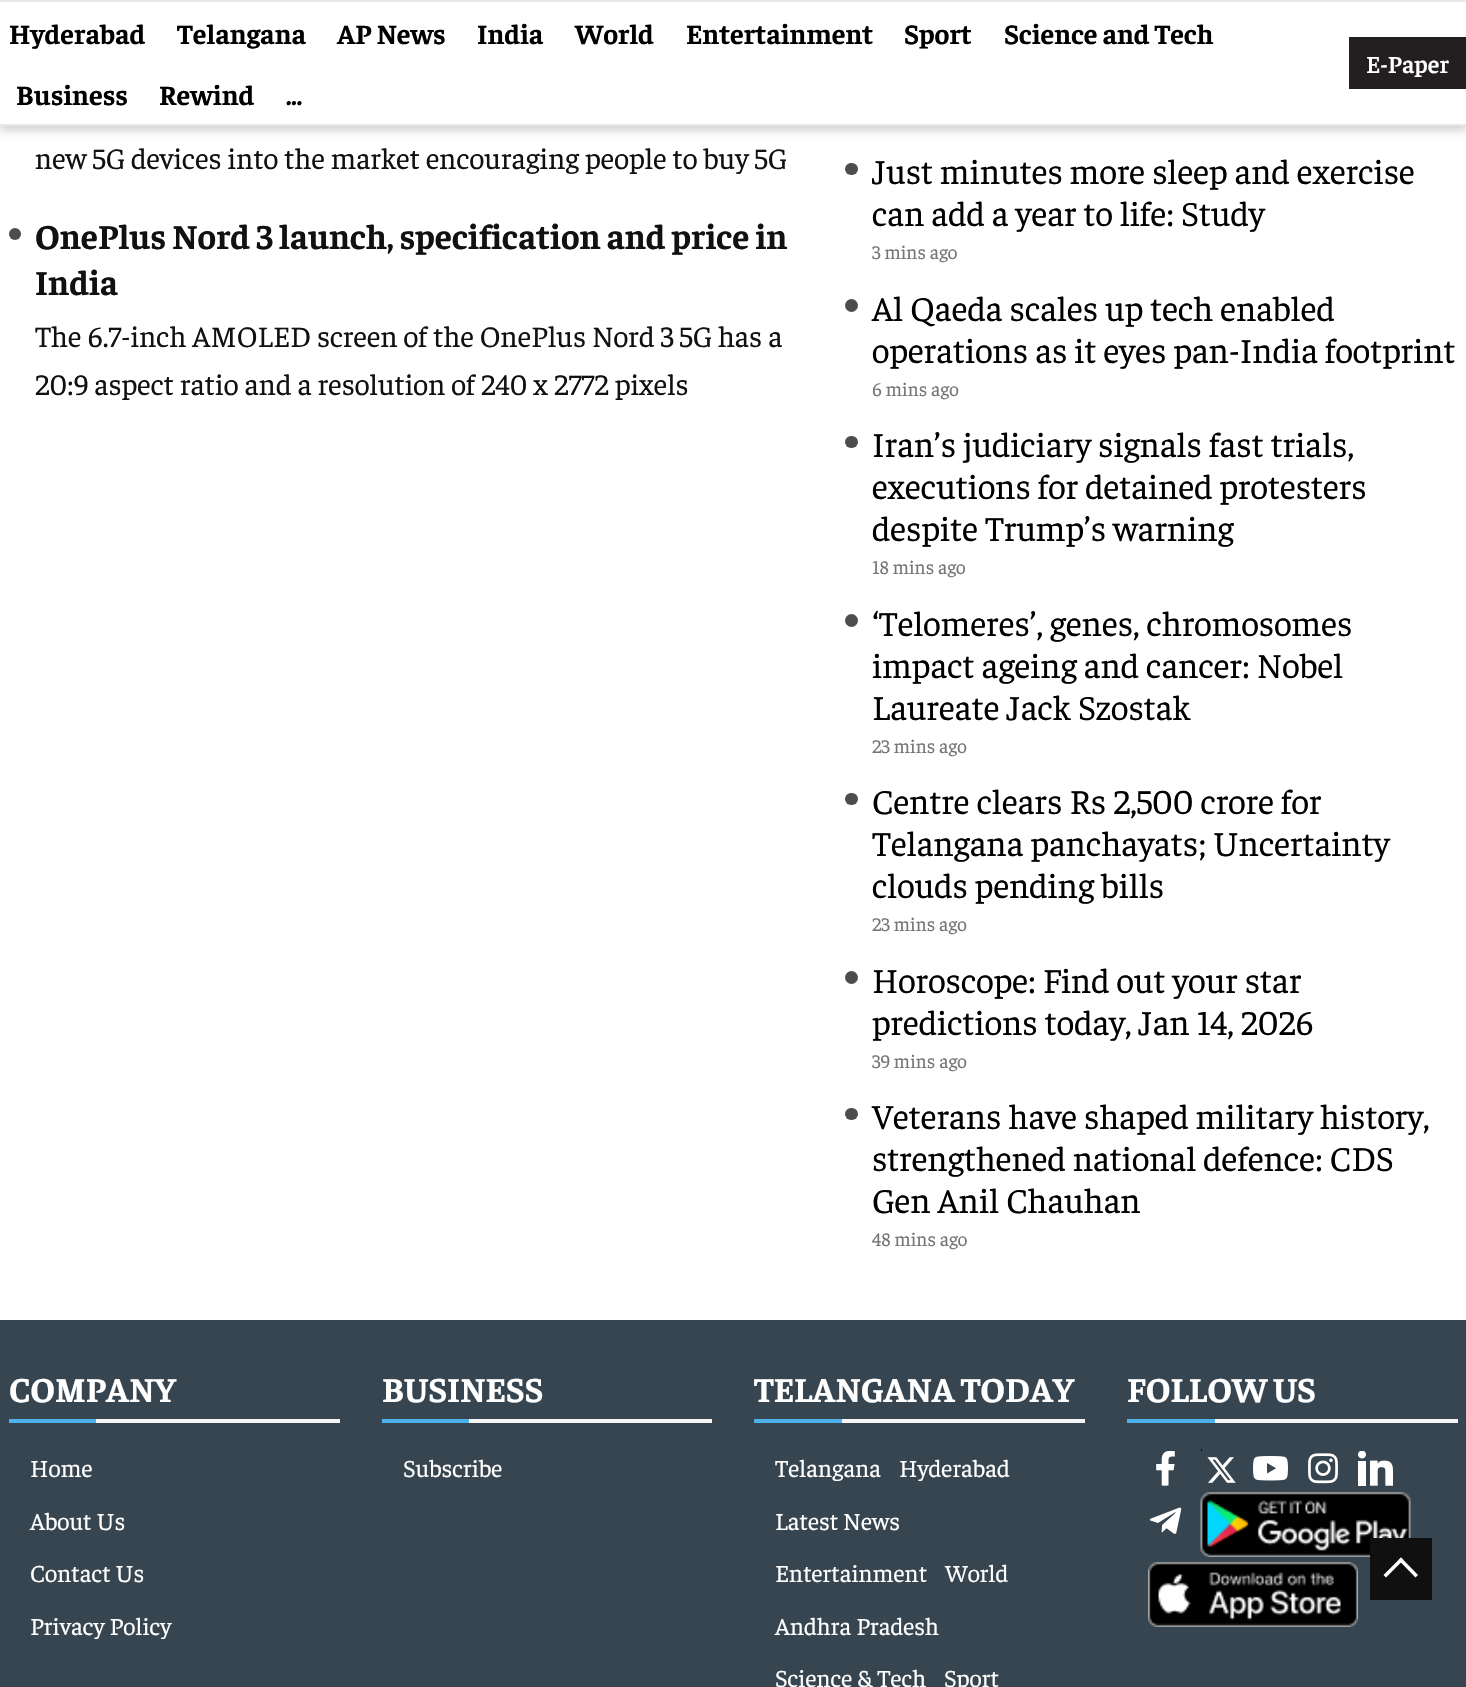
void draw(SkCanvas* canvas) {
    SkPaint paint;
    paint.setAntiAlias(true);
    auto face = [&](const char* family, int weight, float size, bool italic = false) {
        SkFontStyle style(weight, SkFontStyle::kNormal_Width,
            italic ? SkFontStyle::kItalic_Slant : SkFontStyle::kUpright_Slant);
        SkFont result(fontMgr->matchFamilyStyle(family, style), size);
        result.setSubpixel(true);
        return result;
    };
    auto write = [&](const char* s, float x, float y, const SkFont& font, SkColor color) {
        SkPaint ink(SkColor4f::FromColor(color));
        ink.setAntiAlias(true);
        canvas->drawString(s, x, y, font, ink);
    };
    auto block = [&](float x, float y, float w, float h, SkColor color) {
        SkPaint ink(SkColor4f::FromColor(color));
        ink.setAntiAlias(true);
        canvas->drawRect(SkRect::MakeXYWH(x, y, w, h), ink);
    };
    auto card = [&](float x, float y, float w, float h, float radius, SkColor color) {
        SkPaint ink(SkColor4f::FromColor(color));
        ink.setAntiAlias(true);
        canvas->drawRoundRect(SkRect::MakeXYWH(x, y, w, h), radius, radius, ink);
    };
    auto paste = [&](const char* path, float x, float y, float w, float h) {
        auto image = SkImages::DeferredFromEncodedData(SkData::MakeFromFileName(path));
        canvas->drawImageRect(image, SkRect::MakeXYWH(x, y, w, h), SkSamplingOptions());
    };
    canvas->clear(SK_ColorWHITE);
    paint.setColor(SkColorSetARGB(51, 0, 0, 0));
    paint.setMaskFilter(SkMaskFilter::MakeBlur(kNormal_SkBlurStyle, 4.5f));
    canvas->drawRect(SkRect::MakeXYWH(0, 4, 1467, 126), paint);
    paint.setMaskFilter(nullptr);
    block(0, 2, 1466, 122, SK_ColorWHITE);
    block(0, 0, 1466, 2, SkColorSetRGB(232, 232, 232));
    block(0, 124, 1466, 2, SkColorSetRGB(232, 232, 232));
    auto kFont1 = face("Faustina", 700, 28);
    write("Hyderabad", 9, 44, kFont1, SK_ColorBLACK);
    write("Telangana", 177, 44, kFont1, SK_ColorBLACK);
    write("AP News", 337, 44, kFont1, SK_ColorBLACK);
    write("India", 477, 44, kFont1, SK_ColorBLACK);
    write("World", 575, 44, kFont1, SK_ColorBLACK);
    write("Entertainment", 686, 44, kFont1, SK_ColorBLACK);
    write("Sport", 904, 44, kFont1, SK_ColorBLACK);
    write("Science and Tech", 1004, 44, kFont1, SK_ColorBLACK);
    write("Business", 16, 105, kFont1, SK_ColorBLACK);
    write("Rewind", 159, 105, kFont1, SK_ColorBLACK);
    write("...", 286, 105, kFont1, SK_ColorBLACK);
    block(1349, 37, 117, 52, SkColorSetRGB(35, 31, 32));
    auto kFont2 = face("Faustina", 600, 24.5f);
    write("E-Paper", 1366, 73, kFont2, SK_ColorWHITE);
    auto kFont3 = face("Faustina", 400, 29.75f);
    write("new 5G devices into the market encouraging people to buy 5G", 35, 169, kFont3, SkColorSetRGB(17, 17, 17));
    paint.setColor(SkColorSetRGB(77, 77, 77));
    canvas->drawCircle(15, 234, 6, paint);
    auto kFont4 = face("Faustina", 700, 35);
    write("OnePlus Nord 3 launch, specification and price in", 35, 249, kFont4, SkColorSetRGB(17, 17, 17));
    write("India", 35, 295, kFont4, SkColorSetRGB(17, 17, 17));
    write("The 6.7-inch AMOLED screen of the OnePlus Nord 3 5G has a", 35, 347, kFont3, SkColorSetRGB(17, 17, 17));
    write("20:9 aspect ratio and a resolution of 240 x 2772 pixels", 35, 395, kFont3, SkColorSetRGB(17, 17, 17));
    card(845, 163, 13, 12, 6, SkColorSetRGB(77, 77, 77));
    auto kFont5 = face("Faustina", 400, 35);
    write("Just minutes more sleep and exercise", 872, 184, kFont5, SK_ColorBLACK);
    write("can add a year to life: Study", 872, 226, kFont5, SK_ColorBLACK);
    auto kFont6 = face("Faustina", 400, 19.25f);
    write("3 mins ago", 872, 259, kFont6, SkColorSetRGB(118, 118, 118));
    canvas->drawCircle(851.5f, 305.5f, 6.5f, paint);
    write("Al Qaeda scales up tech enabled", 872, 321, kFont5, SK_ColorBLACK);
    write("operations as it eyes pan-India footprint", 872, 363, kFont5, SK_ColorBLACK);
    write("6 mins ago", 872, 396, kFont6, SkColorSetRGB(118, 118, 118));
    card(845, 436, 13, 12, 6, SkColorSetRGB(77, 77, 77));
    write("Iran’s judiciary signals fast trials,", 872, 457, kFont5, SK_ColorBLACK);
    write("executions for detained protesters", 872, 499, kFont5, SK_ColorBLACK);
    write("despite Trump’s warning", 872, 541, kFont5, SK_ColorBLACK);
    write("18 mins ago", 872, 574, kFont6, SkColorSetRGB(118, 118, 118));
    canvas->drawCircle(851.5f, 620.5f, 6.5f, paint);
    write("‘Telomeres’, genes, chromosomes", 872, 636, kFont5, SK_ColorBLACK);
    write("impact ageing and cancer: Nobel", 872, 678, kFont5, SK_ColorBLACK);
    write("Laureate Jack Szostak", 872, 720, kFont5, SK_ColorBLACK);
    write("23 mins ago", 872, 753, kFont6, SkColorSetRGB(118, 118, 118));
    card(845, 793, 13, 12, 6, SkColorSetRGB(77, 77, 77));
    write("Centre clears Rs 2,500 crore for", 872, 814, kFont5, SK_ColorBLACK);
    write("Telangana panchayats; Uncertainty", 872, 856, kFont5, SK_ColorBLACK);
    write("clouds pending bills", 872, 898, kFont5, SK_ColorBLACK);
    write("23 mins ago", 872, 931, kFont6, SkColorSetRGB(118, 118, 118));
    canvas->drawCircle(851.5f, 977.5f, 6.5f, paint);
    write("Horoscope: Find out your star", 872, 993, kFont5, SK_ColorBLACK);
    write("predictions today, Jan 14, 2026", 872, 1035, kFont5, SK_ColorBLACK);
    write("39 mins ago", 872, 1068, kFont6, SkColorSetRGB(118, 118, 118));
    card(845, 1108, 13, 12, 6, SkColorSetRGB(77, 77, 77));
    write("Veterans have shaped military history,", 872, 1129, kFont5, SK_ColorBLACK);
    write("strengthened national defence: CDS", 872, 1171, kFont5, SK_ColorBLACK);
    write("Gen Anil Chauhan", 872, 1213, kFont5, SK_ColorBLACK);
    write("48 mins ago", 872, 1246, kFont6, SkColorSetRGB(118, 118, 118));
    block(0, 1320, 1466, 367, SkColorSetRGB(54, 69, 79));
    write("COMPANY", 9, 1402, kFont4, SK_ColorWHITE);
    block(9, 1419, 87, 4, SkColorSetRGB(77, 178, 236));
    block(96, 1419, 244, 4, SkColorSetRGB(245, 245, 245));
    auto kFont7 = face("Faustina", 400, 24.5f);
    write("Home", 30, 1477, kFont7, SK_ColorWHITE);
    write("About Us", 30, 1530, kFont7, SK_ColorWHITE);
    write("Contact Us", 30, 1582, kFont7, SK_ColorWHITE);
    write("Privacy Policy", 30, 1635, kFont7, SK_ColorWHITE);
    write("BUSINESS", 382, 1402, kFont4, SK_ColorWHITE);
    block(382, 1419, 87, 4, SkColorSetRGB(77, 178, 236));
    block(469, 1419, 243, 4, SkColorSetRGB(245, 245, 245));
    write("Subscribe", 403, 1477, kFont7, SK_ColorWHITE);
    write("TELANGANA TODAY", 754, 1402, kFont4, SK_ColorWHITE);
    block(754, 1419, 88, 4, SkColorSetRGB(77, 178, 236));
    block(842, 1419, 243, 4, SkColorSetRGB(245, 245, 245));
    write("Telangana", 775, 1477, kFont7, SK_ColorWHITE);
    write("Hyderabad", 899, 1477, kFont7, SK_ColorWHITE);
    write("Latest News", 775, 1530, kFont7, SK_ColorWHITE);
    write("Entertainment", 775, 1582, kFont7, SK_ColorWHITE);
    write("World", 945, 1582, kFont7, SK_ColorWHITE);
    write("Andhra Pradesh", 775, 1635, kFont7, SK_ColorWHITE);
    write("Science & Tech", 775, 1687, kFont7, SK_ColorWHITE);
    write("Sport", 944, 1687, kFont7, SK_ColorWHITE);
    write("FOLLOW US", 1127, 1402, kFont4, SK_ColorWHITE);
    block(1127, 1419, 88, 4, SkColorSetRGB(77, 178, 236));
    block(1215, 1419, 243, 4, SkColorSetRGB(245, 245, 245));
    paste("pic1.png", 1156, 1451, 19, 35);
    paste("pic2.png", 1201, 1449, 35, 34);
    paste("pic3.png", 1253, 1456, 35, 25);
    paste("pic4.png", 1308, 1453, 30, 31);
    paste("pic5.png", 1358, 1451, 35, 35);
    paste("pic6.png", 1149, 1507, 33, 27);
    paste("pic7.png", 1200, 1492, 211, 65);
    paste("pic8.png", 1148, 1562, 210, 65);
    block(1370, 1538, 62, 62, SkColorSetRGB(16, 16, 16));
    paint.setColor(SK_ColorWHITE);
    canvas->drawPath(SkPathBuilder().moveTo(1386, 1577.5f).lineTo(1383.5f, 1575).lineTo(1401, 1557.5f).lineTo(1403.5f, 1560).close().detach(), paint);
    canvas->drawPath(SkPathBuilder().moveTo(1415.5f, 1577.5f).lineTo(1398.5f, 1560).lineTo(1401, 1557.5f).lineTo(1418, 1575).close().detach(), paint);
}
